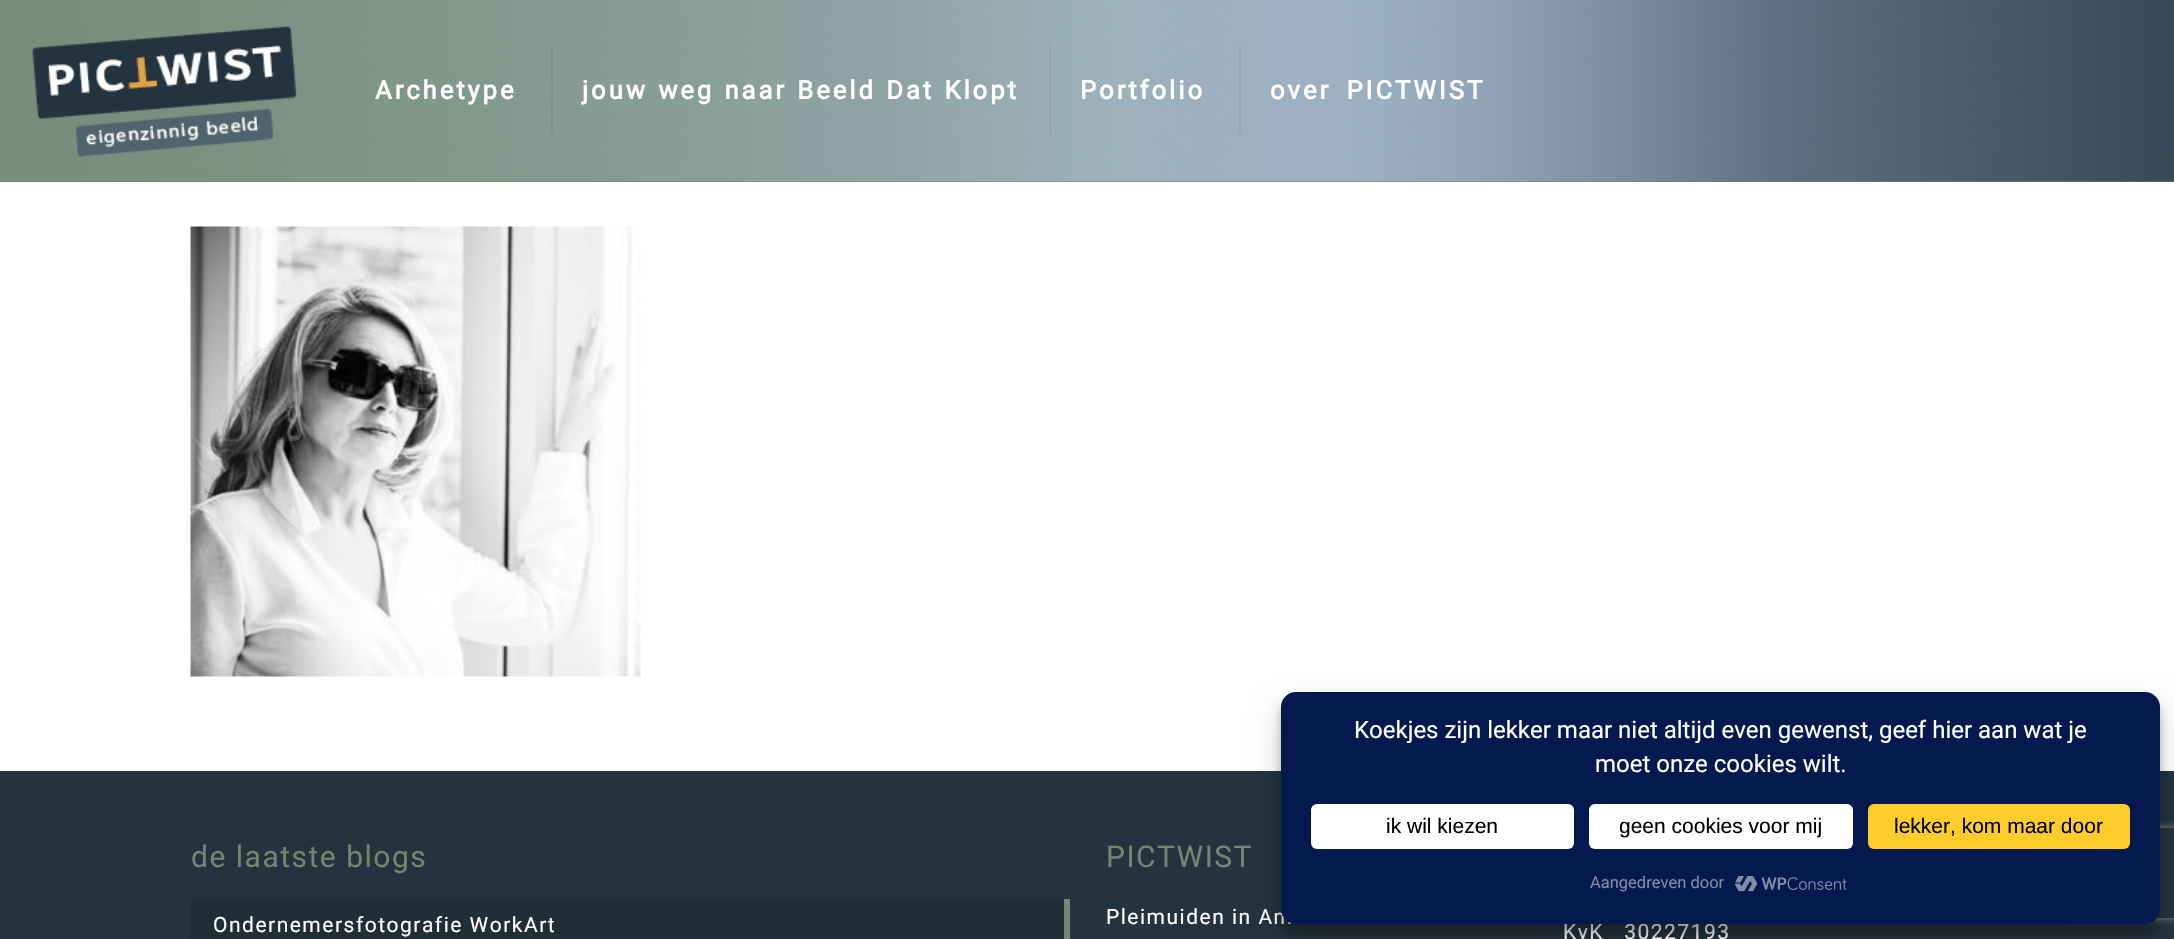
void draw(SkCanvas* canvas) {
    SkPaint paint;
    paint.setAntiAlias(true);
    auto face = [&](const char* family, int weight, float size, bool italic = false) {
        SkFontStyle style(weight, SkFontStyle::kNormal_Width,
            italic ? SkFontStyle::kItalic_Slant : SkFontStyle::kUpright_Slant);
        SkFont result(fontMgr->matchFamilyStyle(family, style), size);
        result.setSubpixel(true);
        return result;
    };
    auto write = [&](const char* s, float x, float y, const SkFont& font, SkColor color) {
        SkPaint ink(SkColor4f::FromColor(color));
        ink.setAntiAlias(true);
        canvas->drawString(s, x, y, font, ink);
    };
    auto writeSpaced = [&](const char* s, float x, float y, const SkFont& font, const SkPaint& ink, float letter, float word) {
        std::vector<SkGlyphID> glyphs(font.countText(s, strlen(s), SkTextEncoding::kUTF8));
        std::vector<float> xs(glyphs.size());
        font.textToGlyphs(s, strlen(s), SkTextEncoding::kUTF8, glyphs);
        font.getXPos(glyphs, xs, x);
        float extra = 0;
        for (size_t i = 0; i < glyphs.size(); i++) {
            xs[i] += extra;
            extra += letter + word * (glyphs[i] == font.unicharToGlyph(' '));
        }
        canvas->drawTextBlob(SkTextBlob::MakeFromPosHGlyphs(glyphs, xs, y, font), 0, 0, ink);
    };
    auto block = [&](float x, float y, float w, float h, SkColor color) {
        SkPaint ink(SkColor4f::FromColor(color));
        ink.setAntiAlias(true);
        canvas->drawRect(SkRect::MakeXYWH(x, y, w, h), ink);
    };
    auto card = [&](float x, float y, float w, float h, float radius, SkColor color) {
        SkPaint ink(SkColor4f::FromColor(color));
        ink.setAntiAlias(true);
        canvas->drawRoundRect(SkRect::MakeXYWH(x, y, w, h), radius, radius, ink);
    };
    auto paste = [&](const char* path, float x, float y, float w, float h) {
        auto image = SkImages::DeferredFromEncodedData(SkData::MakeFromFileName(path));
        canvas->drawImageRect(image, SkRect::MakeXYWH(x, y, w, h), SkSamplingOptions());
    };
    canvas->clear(SK_ColorWHITE);
    block(0, 181, 2174, 1, SkColorSetRGB(112, 136, 112));
    paste("pic1.png", 0, 0, 2174, 182);
    paste("pic2.png", 32, 26, 265, 131);
    block(551, 45, 2, 90, SkColorSetRGB(125, 147, 138));
    auto kFont1 = face("Roboto", 700, 25.5f);
    paint.setColor(SK_ColorWHITE);
    writeSpaced("Archetype", 375, 99, kFont1, paint, 3, 0);
    block(1049, 45, 2, 90, SkColorSetRGB(145, 165, 172));
    writeSpaced("jouw weg naar Beeld Dat Klopt", 582, 99, kFont1, paint, 3, 1);
    block(1239, 45, 2, 90, SkColorSetRGB(148, 167, 182));
    writeSpaced("Portfolio", 1080, 99, kFont1, paint, 3, 0);
    writeSpaced("over PICTWIST", 1270, 99, kFont1, paint, 3, 6);
    paste("pic3.png", 190, 226, 451, 451);
    block(0, 771, 2174, 168, SkColorSetRGB(36, 51, 62));
    auto kFont2 = face("Roboto", 400, 30);
    paint.setColor(SkColorSetRGB(112, 136, 112));
    writeSpaced("de laatste blogs", 191, 867, kFont2, paint, 1.5f, 0);
    block(191, 899, 873, 40, SkColorSetRGB(32, 46, 56));
    auto kFont3 = face("Roboto", 400, 21);
    paint.setColor(SK_ColorWHITE);
    writeSpaced("Ondernemersfotografie WorkArt", 213, 932, kFont3, paint, 1.5f, 0);
    block(1064, 899, 6, 40, SkColorSetRGB(112, 136, 112));
    paint.setColor(SkColorSetRGB(112, 136, 112));
    writeSpaced("PICTWIST", 1106, 867, kFont2, paint, 1.5f, 0);
    paint.setColor(SK_ColorWHITE);
    writeSpaced("Pleimuiden in Am", 1106, 924, kFont3, paint, 1.5f, 0);
    writeSpaced("KvK   30227193", 1563, 939, kFont3, paint, 1.5f, 0);
    paint.setColor(SkColorSetARGB(59, 0, 0, 0));
    paint.setMaskFilter(SkMaskFilter::MakeBlur(kNormal_SkBlurStyle, 4.5f));
    canvas->drawRoundRect(SkRect::MakeXYWH(1281, 701, 879, 232), 15, 15, paint);
    paint.setMaskFilter(nullptr);
    paint.setColor(SkColorSetARGB(48, 0, 0, 0));
    paint.setMaskFilter(SkMaskFilter::MakeBlur(kNormal_SkBlurStyle, 15));
    canvas->drawRoundRect(SkRect::MakeXYWH(1281, 707, 879, 232), 15, 15, paint);
    paint.setMaskFilter(nullptr);
    canvas->save();
    canvas->clipPath(SkPathBuilder(SkPathFillType::kEvenOdd).moveTo(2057, 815).lineTo(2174, 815).lineTo(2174, 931).lineTo(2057, 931).close().moveTo(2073, 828).lineTo(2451, 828).cubicTo(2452.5f, 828, 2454, 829.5f, 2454, 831).lineTo(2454, 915).cubicTo(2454, 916.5f, 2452.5f, 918, 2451, 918).lineTo(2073, 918).cubicTo(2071.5f, 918, 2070, 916.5f, 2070, 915).lineTo(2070, 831).cubicTo(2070, 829.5f, 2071.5f, 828, 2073, 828).close().detach(), true);
    paint.setColor(SkColorSetRGB(128, 128, 128));
    paint.setMaskFilter(SkMaskFilter::MakeBlur(kNormal_SkBlurStyle, 4));
    canvas->drawRoundRect(SkRect::MakeXYWH(2070, 828, 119, 90), 3, 3, paint);
    paint.setMaskFilter(nullptr);
    canvas->restore();
    card(1281, 692, 879, 232, 15, SkColorSetRGB(4, 25, 78));
    auto kFont4 = face("Roboto", 400, 24);
    write("Koekjes zijn lekker maar niet altijd even gewenst, geef hier aan wat je", 1354, 738, kFont4, SK_ColorWHITE);
    write("moet onze cookies wilt.", 1595, 772, kFont4, SK_ColorWHITE);
    card(1311, 804, 263, 45, 6, SK_ColorWHITE);
    auto kFont5 = face("Liberation Sans", 400, 21);
    write("ik wil kiezen", 1386, 833, kFont5, SK_ColorBLACK);
    card(1589, 804, 264, 45, 6, SK_ColorWHITE);
    write("geen cookies voor mij", 1619, 833, kFont5, SK_ColorBLACK);
    card(1868, 804, 262, 45, 6, SkColorSetRGB(255, 205, 42));
    write("lekker, kom maar door", 1894, 833, kFont5, SK_ColorBLACK);
    auto kFont6 = face("Roboto", 400, 16.5f);
    write("Aangedreven door", 1590, 888, kFont6, SkColorSetRGB(130, 140, 167));
    paste("pic4.png", 1735, 876, 112, 16);
}
